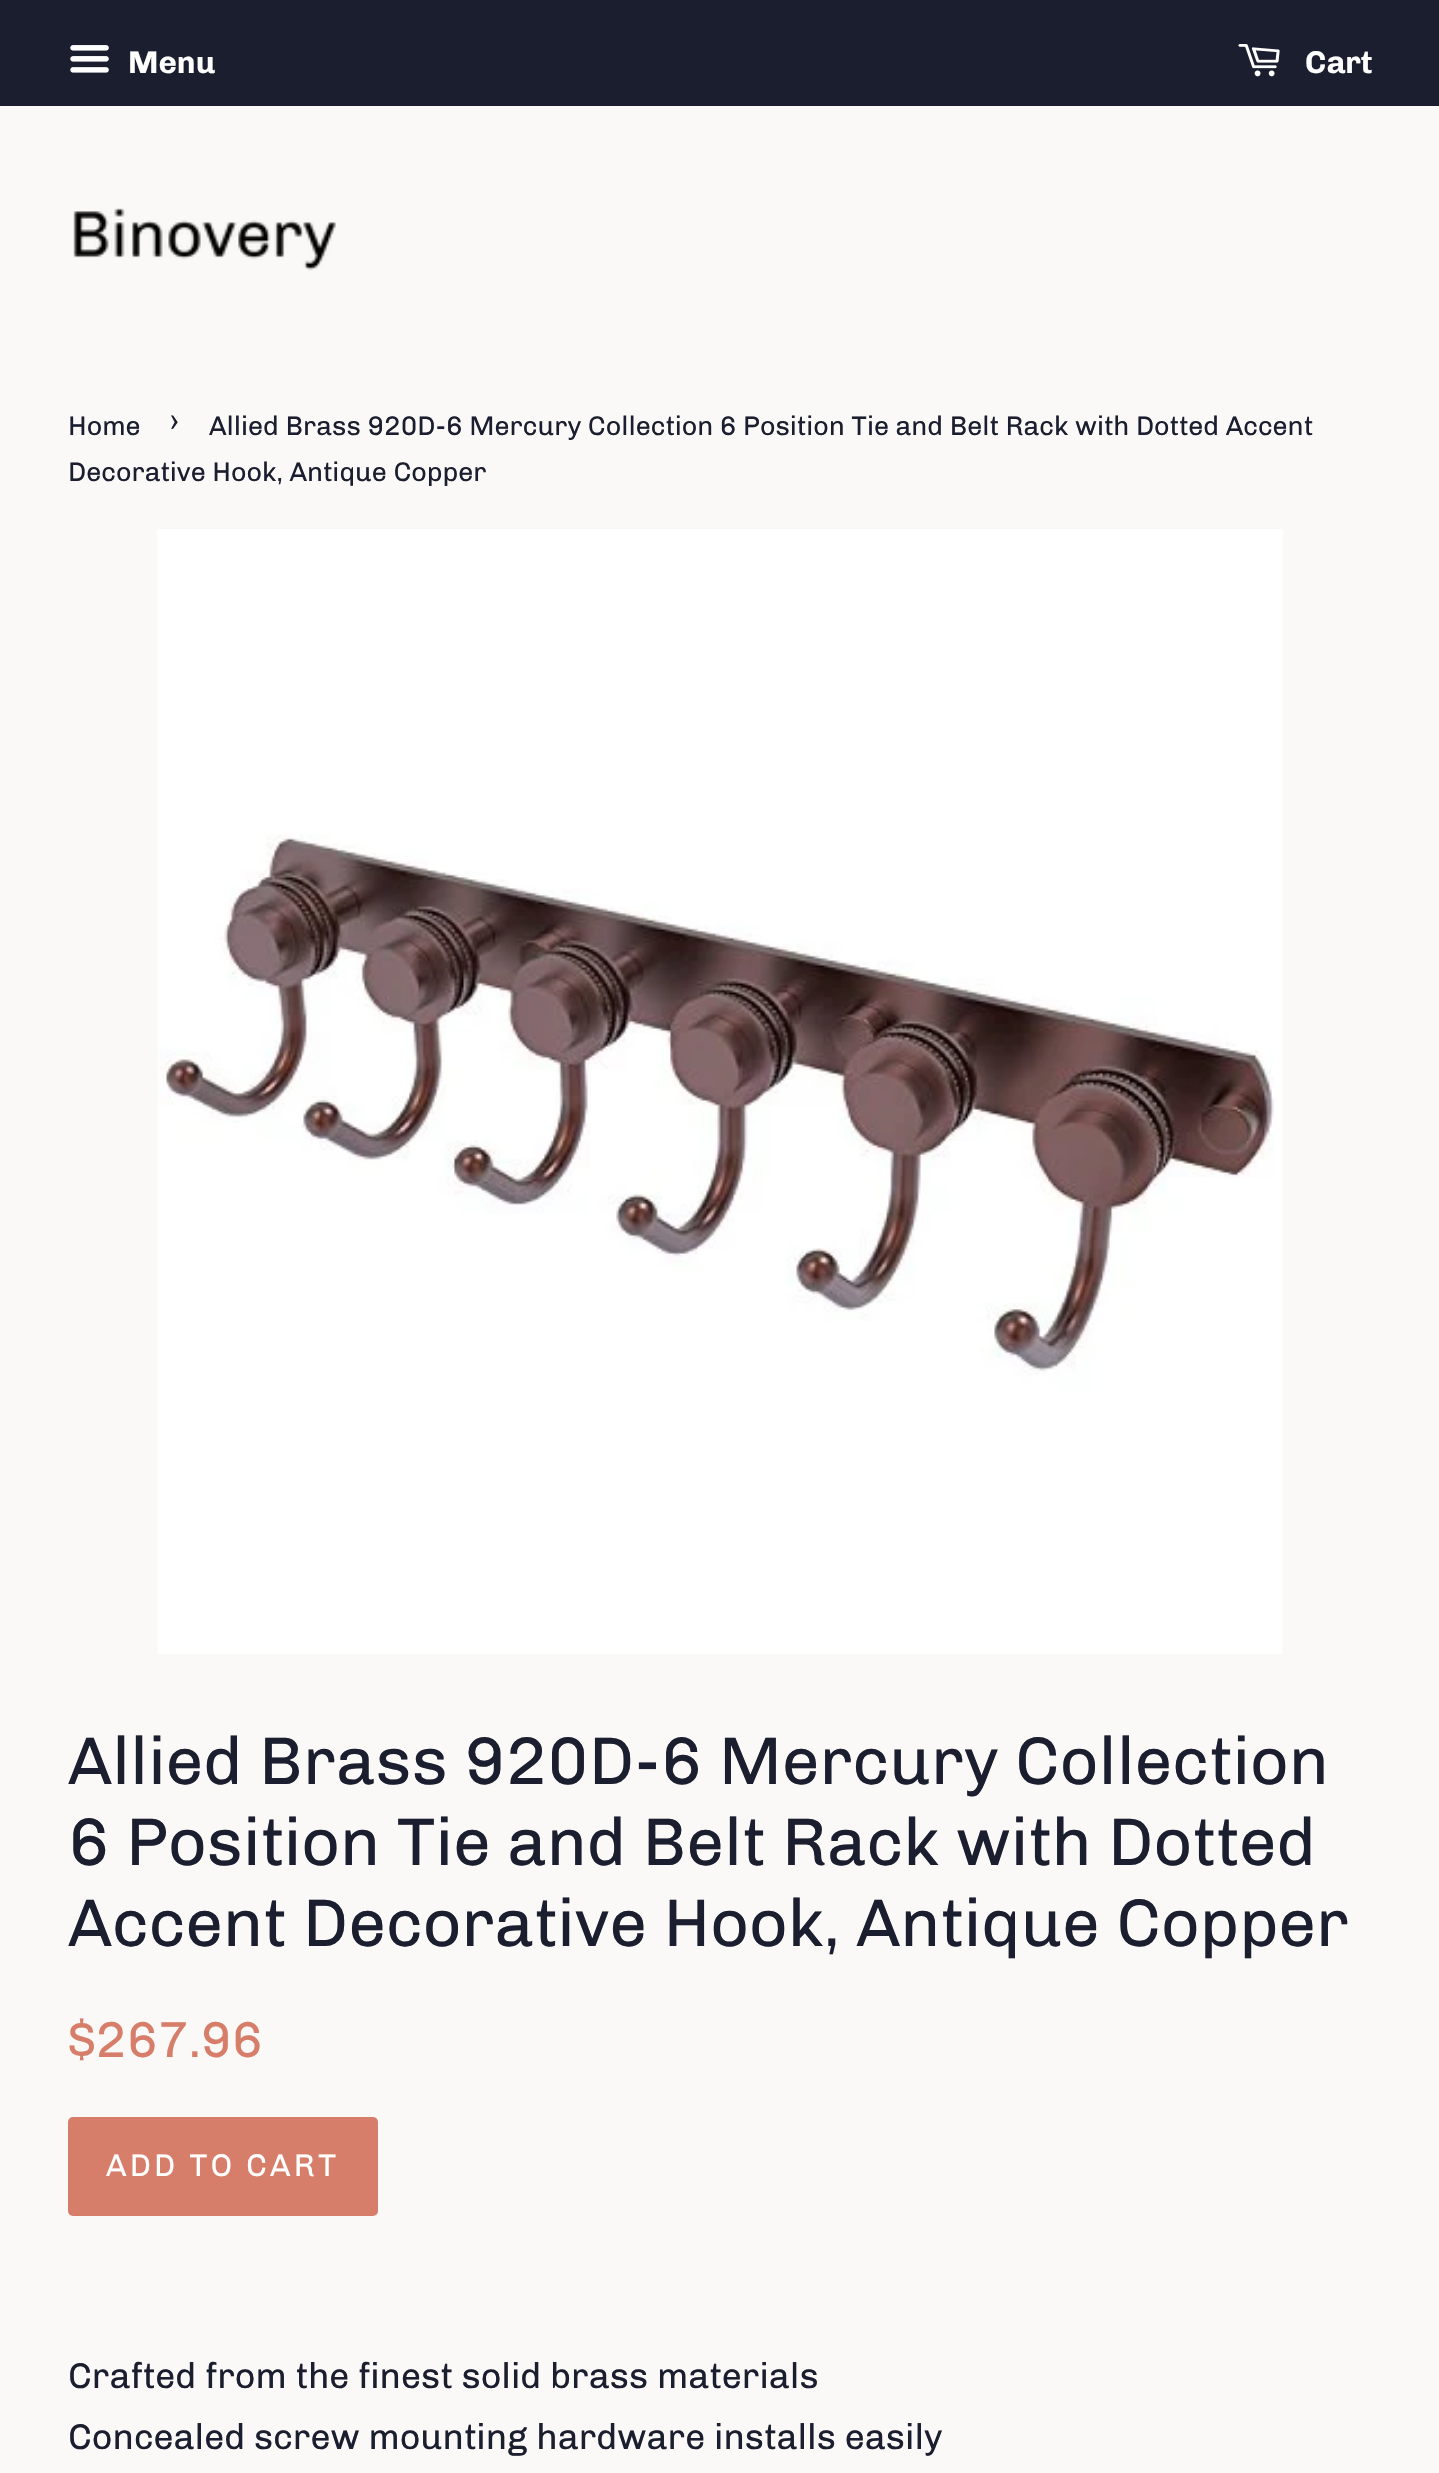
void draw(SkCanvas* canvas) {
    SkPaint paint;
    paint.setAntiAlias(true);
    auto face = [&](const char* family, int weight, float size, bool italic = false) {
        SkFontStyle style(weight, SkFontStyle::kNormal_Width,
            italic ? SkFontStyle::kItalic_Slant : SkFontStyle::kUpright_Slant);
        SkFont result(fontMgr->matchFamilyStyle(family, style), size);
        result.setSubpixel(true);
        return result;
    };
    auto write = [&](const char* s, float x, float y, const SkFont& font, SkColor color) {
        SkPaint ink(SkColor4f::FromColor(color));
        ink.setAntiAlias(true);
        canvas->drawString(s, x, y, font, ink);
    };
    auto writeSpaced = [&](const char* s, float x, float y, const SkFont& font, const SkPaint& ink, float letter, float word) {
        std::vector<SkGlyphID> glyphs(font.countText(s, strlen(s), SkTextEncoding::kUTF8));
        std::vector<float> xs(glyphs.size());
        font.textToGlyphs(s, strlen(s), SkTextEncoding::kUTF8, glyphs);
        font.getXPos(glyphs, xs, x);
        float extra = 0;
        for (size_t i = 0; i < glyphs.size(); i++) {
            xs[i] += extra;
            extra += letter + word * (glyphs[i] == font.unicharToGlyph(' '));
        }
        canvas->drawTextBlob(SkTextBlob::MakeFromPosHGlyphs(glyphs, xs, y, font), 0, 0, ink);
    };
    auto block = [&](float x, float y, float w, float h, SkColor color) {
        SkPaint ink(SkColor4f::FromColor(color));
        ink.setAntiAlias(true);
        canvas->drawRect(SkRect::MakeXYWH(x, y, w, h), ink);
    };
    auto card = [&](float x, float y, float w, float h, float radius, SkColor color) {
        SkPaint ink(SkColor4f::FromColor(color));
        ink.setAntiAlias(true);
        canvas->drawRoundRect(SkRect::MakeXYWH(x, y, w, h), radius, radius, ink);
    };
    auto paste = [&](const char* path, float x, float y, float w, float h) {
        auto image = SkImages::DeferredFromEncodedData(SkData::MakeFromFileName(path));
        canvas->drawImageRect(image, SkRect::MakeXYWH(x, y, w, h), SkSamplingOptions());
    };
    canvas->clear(SkColorSetRGB(250, 249, 247));
    block(0, 0, 1439, 106, SkColorSetRGB(27, 30, 47));
    paste("pic1.png", 70, 45, 39, 28);
    auto kFont1 = face("Chivo", 400, 31.5f);
    write("Menu", 128, 73, kFont1, SK_ColorWHITE);
    paste("pic2.png", 1238, 44, 42, 33);
    write("Cart", 1305, 73, kFont1, SK_ColorWHITE);
    paste("pic3.png", 73, 208, 263, 63);
    auto kFont2 = face("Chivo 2", 400, 27);
    write("Home", 68, 435, kFont2, SkColorSetRGB(27, 30, 47));
    auto kFont3 = face("Chivo 2", 400, 38);
    write("›", 169, 435, kFont3, SkColorSetRGB(27, 30, 47));
    write("Allied Brass 920D-6 Mercury Collection 6 Position Tie and Belt Rack with Dotted Accent", 209, 435, kFont2, SkColorSetRGB(27, 30, 47));
    write("Decorative Hook, Antique Copper", 68, 481, kFont2, SkColorSetRGB(27, 30, 47));
    paste("pic4.png", 157, 529, 1126, 1125);
    auto kFont4 = face("Chivo 2", 400, 67.5f);
    write("Allied Brass 920D-6 Mercury Collection", 68, 1784, kFont4, SkColorSetRGB(27, 30, 47));
    write("6 Position Tie and Belt Rack with Dotted", 68, 1865, kFont4, SkColorSetRGB(27, 30, 47));
    write("Accent Decorative Hook, Antique Copper", 68, 1946, kFont4, SkColorSetRGB(27, 30, 47));
    auto kFont5 = face("Chivo 2", 400, 50.5f);
    write("$267.96", 68, 2057, kFont5, SkColorSetRGB(215, 126, 106));
    card(68, 2117, 310, 99, 5, SkColorSetRGB(215, 126, 106));
    auto kFont6 = face("Chivo 2", 400, 31.5f);
    paint.setColor(SK_ColorWHITE);
    writeSpaced("ADD TO CART", 106, 2176, kFont6, paint, 3.1f, 0);
    auto kFont7 = face("Chivo 2", 400, 36);
    write("Crafted from the finest solid brass materials", 68, 2388, kFont7, SkColorSetRGB(27, 30, 47));
    write("Concealed screw mounting hardware installs easily", 68, 2449, kFont7, SkColorSetRGB(27, 30, 47));
}
